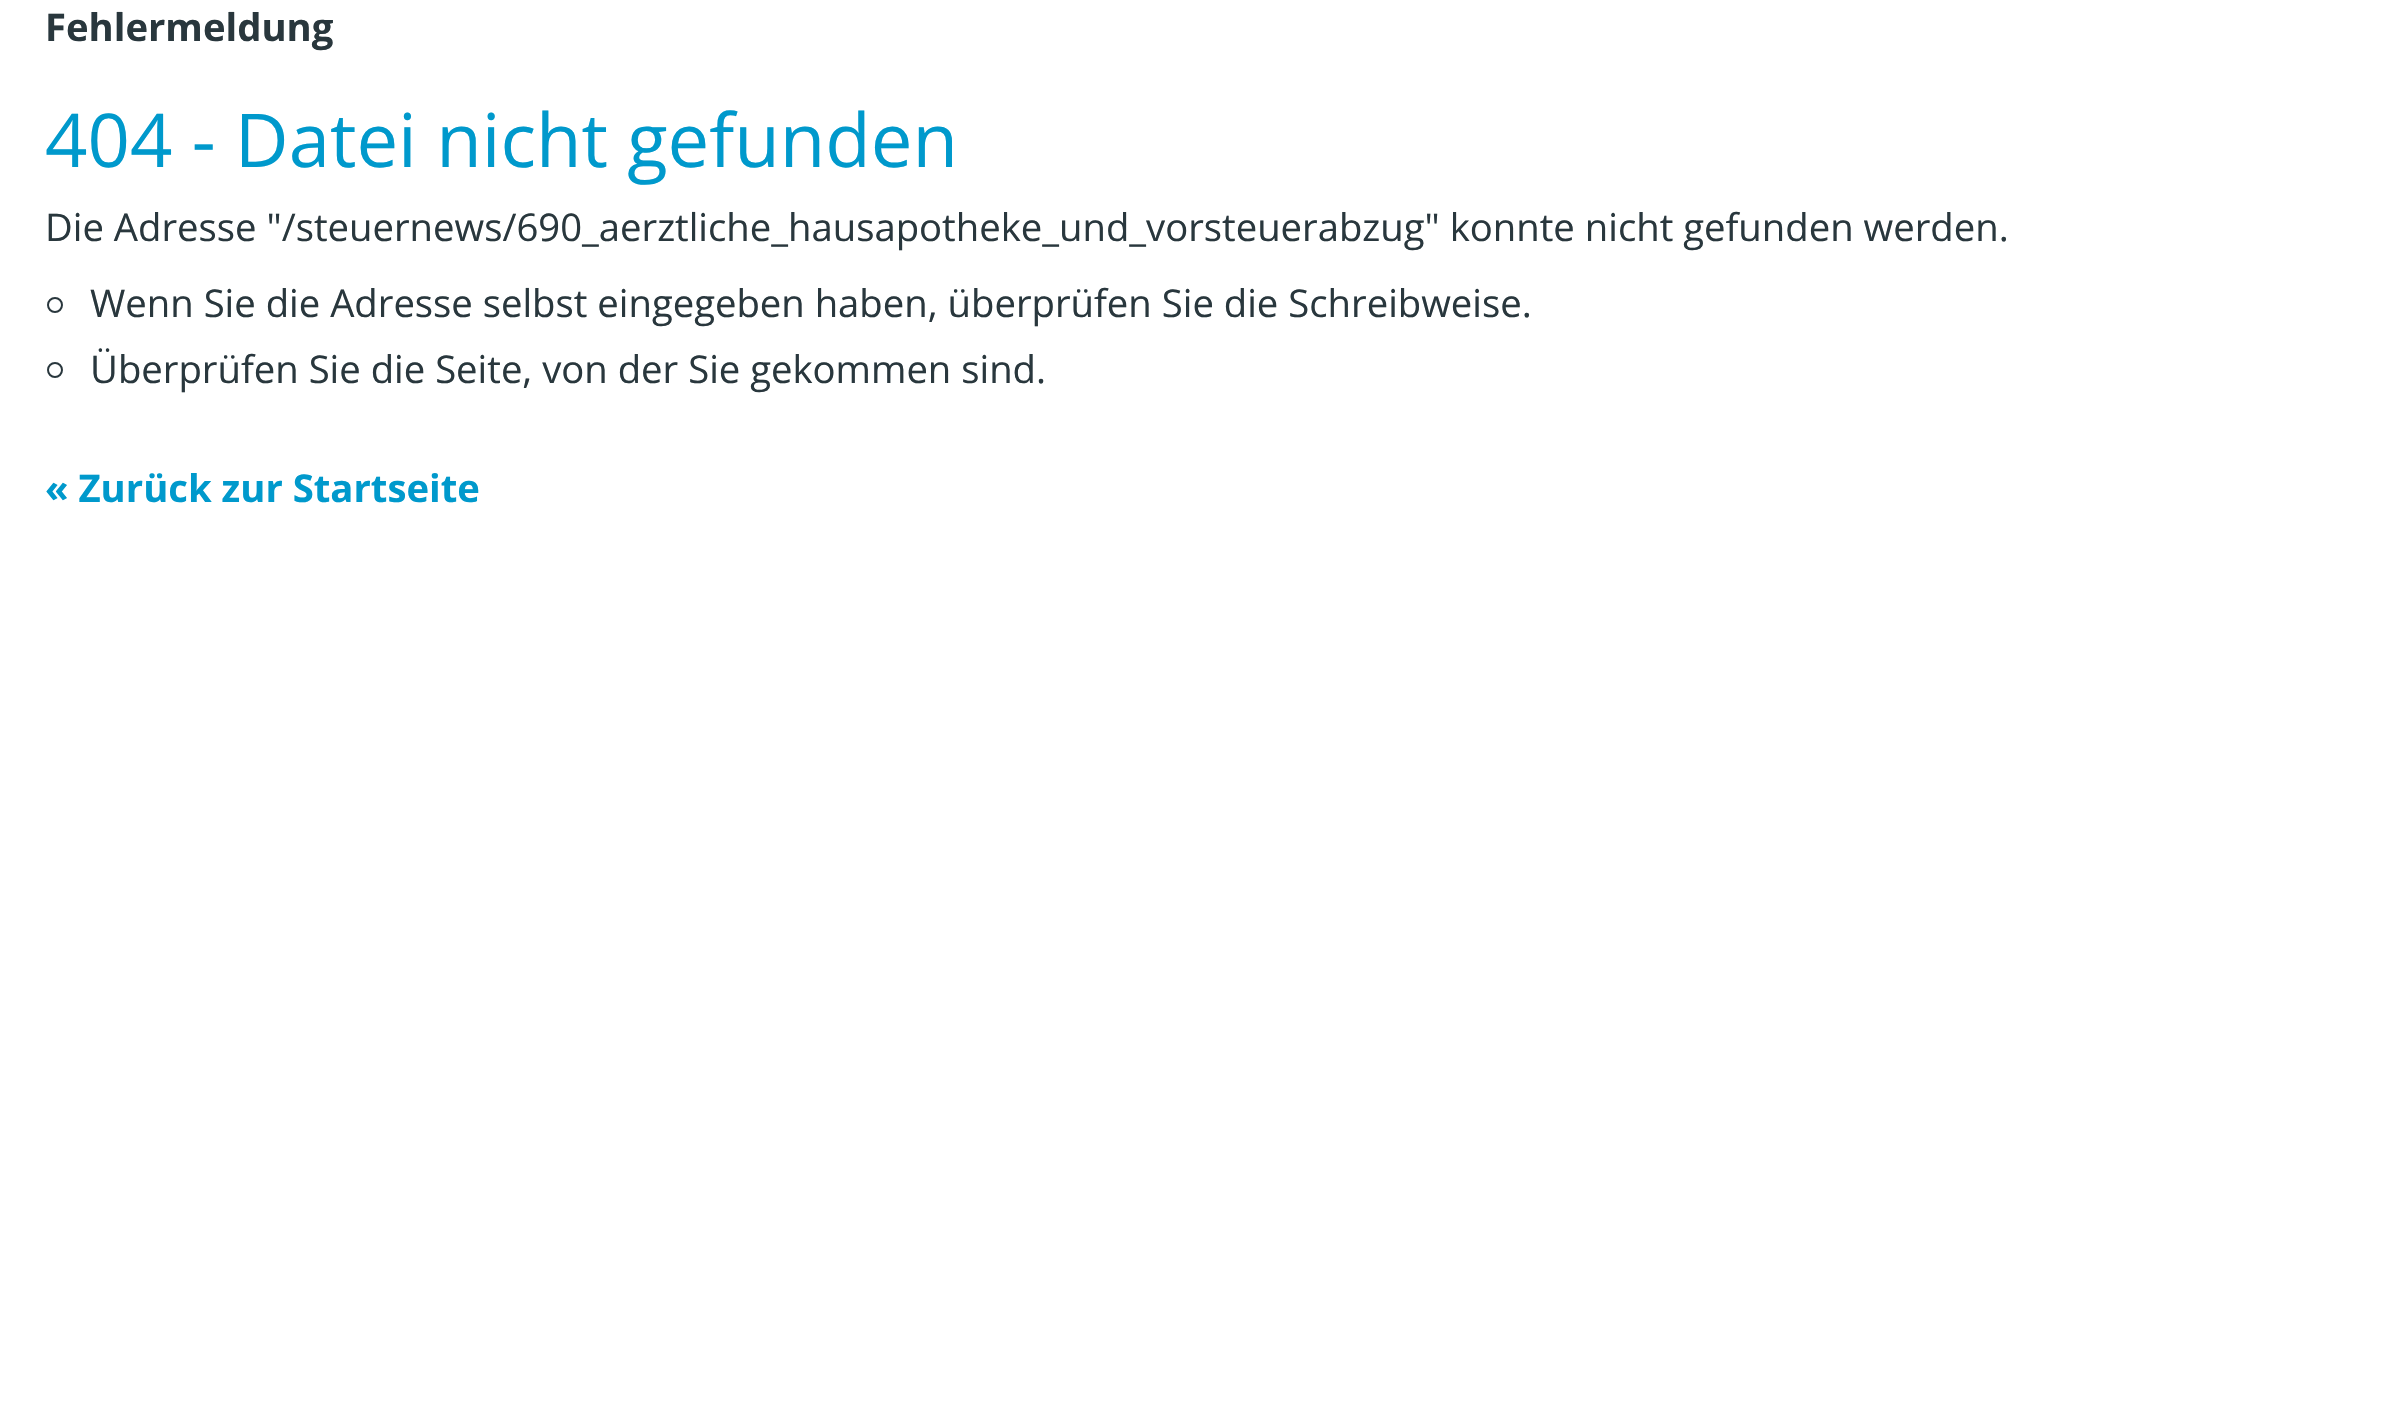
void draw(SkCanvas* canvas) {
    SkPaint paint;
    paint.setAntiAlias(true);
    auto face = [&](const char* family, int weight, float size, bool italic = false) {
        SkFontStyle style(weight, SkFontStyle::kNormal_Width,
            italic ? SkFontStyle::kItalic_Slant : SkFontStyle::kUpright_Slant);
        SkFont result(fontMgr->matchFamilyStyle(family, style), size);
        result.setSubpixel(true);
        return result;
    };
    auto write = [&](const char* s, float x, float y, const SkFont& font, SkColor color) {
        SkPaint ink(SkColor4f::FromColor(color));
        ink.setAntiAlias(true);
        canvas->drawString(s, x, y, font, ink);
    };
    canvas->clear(SK_ColorWHITE);
    auto kFont1 = face("Open Sans", 700, 38.25f);
    write("Fehlermeldung", 45, 41, kFont1, SkColorSetRGB(41, 55, 61));
    auto kFont2 = face("Open Sans", 400, 74.25f);
    write("404 - Datei nicht gefunden", 45, 167, kFont2, SkColorSetRGB(0, 153, 204));
    auto kFont3 = face("Open Sans", 400, 38.25f);
    write("Die Adresse \"/steuernews/690_aerztliche_hausapotheke_und_vorsteuerabzug\" konnte nicht gefunden werden.", 45, 241, kFont3, SkColorSetRGB(41, 55, 61));
    paint.setStyle(SkPaint::kStroke_Style);
    paint.setStrokeWidth(2);
    paint.setColor(SkColorSetRGB(41, 55, 61));
    canvas->drawCircle(55, 305, 7, paint);
    write("Wenn Sie die Adresse selbst eingegeben haben, überprüfen Sie die Schreibweise.", 90, 317, kFont3, SkColorSetRGB(41, 55, 61));
    canvas->drawCircle(55, 370, 7, paint);
    write("Überprüfen Sie die Seite, von der Sie gekommen sind.", 90, 383, kFont3, SkColorSetRGB(41, 55, 61));
    write("« Zurück zur Startseite", 45, 502, kFont1, SkColorSetRGB(0, 153, 204));
}
